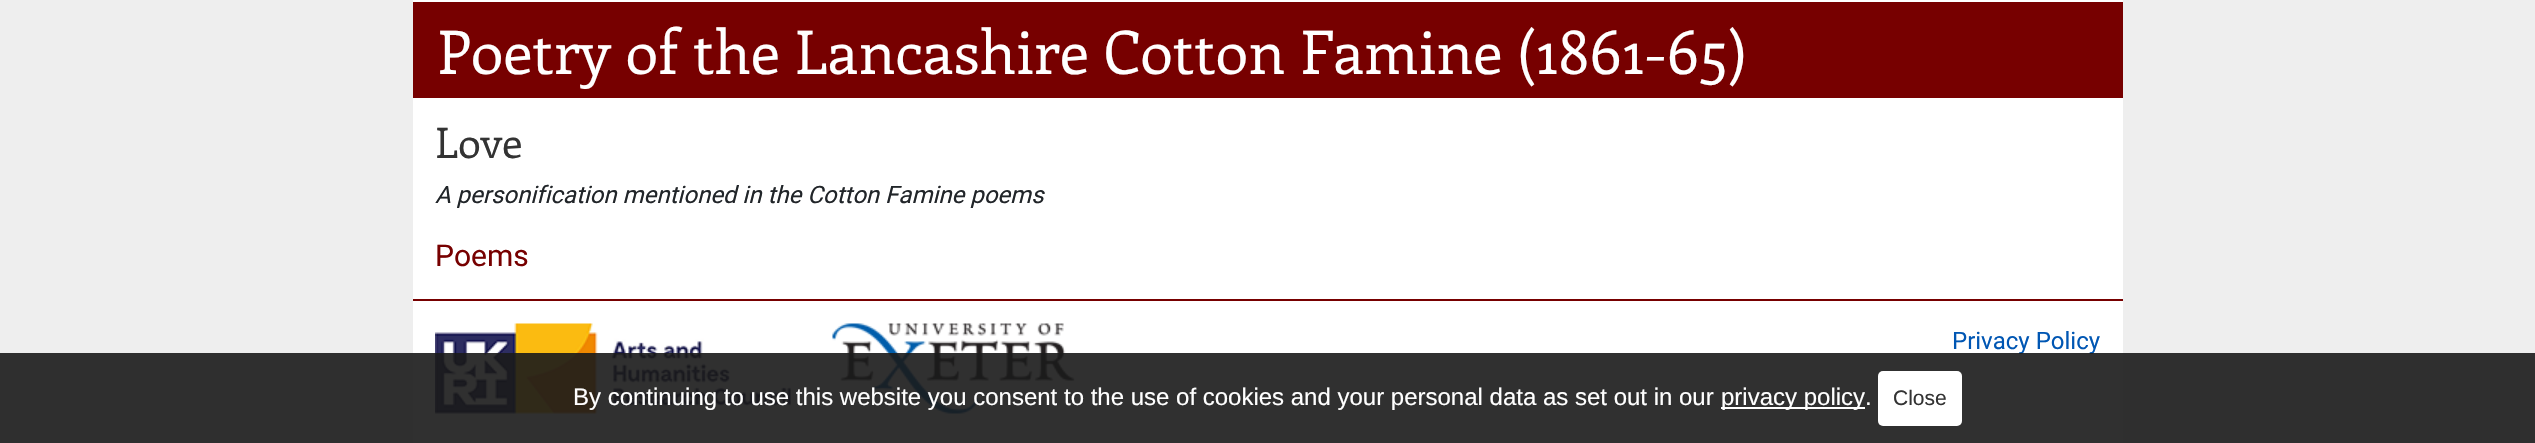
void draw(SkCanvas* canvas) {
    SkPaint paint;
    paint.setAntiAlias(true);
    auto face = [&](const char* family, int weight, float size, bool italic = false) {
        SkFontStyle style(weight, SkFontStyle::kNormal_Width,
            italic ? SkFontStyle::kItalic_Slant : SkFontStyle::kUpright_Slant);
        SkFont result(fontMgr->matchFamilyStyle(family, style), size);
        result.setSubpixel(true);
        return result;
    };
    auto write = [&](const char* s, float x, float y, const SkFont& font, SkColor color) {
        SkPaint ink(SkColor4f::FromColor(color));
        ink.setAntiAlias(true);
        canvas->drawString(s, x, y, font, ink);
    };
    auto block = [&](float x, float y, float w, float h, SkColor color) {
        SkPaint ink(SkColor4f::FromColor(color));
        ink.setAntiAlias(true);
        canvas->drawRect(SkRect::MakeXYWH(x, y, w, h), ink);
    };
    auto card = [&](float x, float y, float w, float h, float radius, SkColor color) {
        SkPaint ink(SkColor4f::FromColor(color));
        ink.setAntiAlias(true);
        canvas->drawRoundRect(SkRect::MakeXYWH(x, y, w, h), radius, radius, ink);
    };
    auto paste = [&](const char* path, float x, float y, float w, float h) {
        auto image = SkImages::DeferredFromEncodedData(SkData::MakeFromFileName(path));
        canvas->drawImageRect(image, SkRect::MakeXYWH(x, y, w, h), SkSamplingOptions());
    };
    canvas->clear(SkColorSetRGB(238, 238, 238));
    block(413, 0, 1710, 443, SK_ColorWHITE);
    block(413, 2, 1710, 96, SkColorSetRGB(119, 0, 0));
    auto kFont1 = face("Enriqueta", 400, 60);
    write("Poetry of the Lancashire Cotton Famine (1861-65)", 437, 74, kFont1, SK_ColorWHITE);
    auto kFont2 = face("Enriqueta", 400, 42);
    write("Love", 435, 158, kFont2, SkColorSetRGB(51, 51, 51));
    auto kFont3 = face("Roboto", 400, 24, true);
    write("A personification mentioned in the Cotton Famine poems", 435, 203, kFont3, SkColorSetRGB(33, 37, 41));
    auto kFont4 = face("Roboto", 400, 30);
    write("Poems", 435, 266, kFont4, SkColorSetRGB(119, 0, 0));
    block(413, 299, 1710, 2, SkColorSetRGB(119, 0, 0));
    paste("pic1.png", 435, 323, 356, 91);
    paste("pic2.png", 832, 323, 243, 91);
    auto kFont5 = face("Roboto", 400, 24);
    write("Privacy Policy", 1952, 349, kFont5, SkColorSetRGB(0, 86, 179));
    block(0, 353, 2535, 90, SkColorSetARGB(230, 25, 25, 25));
    auto kFont6 = face("Liberation Sans", 400, 24);
    write("By continuing to use this website you consent to the use of cookies and your personal data as set out in our", 573, 405, kFont6, SK_ColorWHITE);
    block(1721, 407, 144, 2, SK_ColorWHITE);
    write("privacy policy.", 1721, 405, kFont6, SK_ColorWHITE);
    card(1878, 371, 84, 55, 5, SK_ColorWHITE);
    auto kFont7 = face("Liberation Sans", 400, 21);
    write("Close", 1893, 405, kFont7, SkColorSetRGB(51, 51, 51));
}
